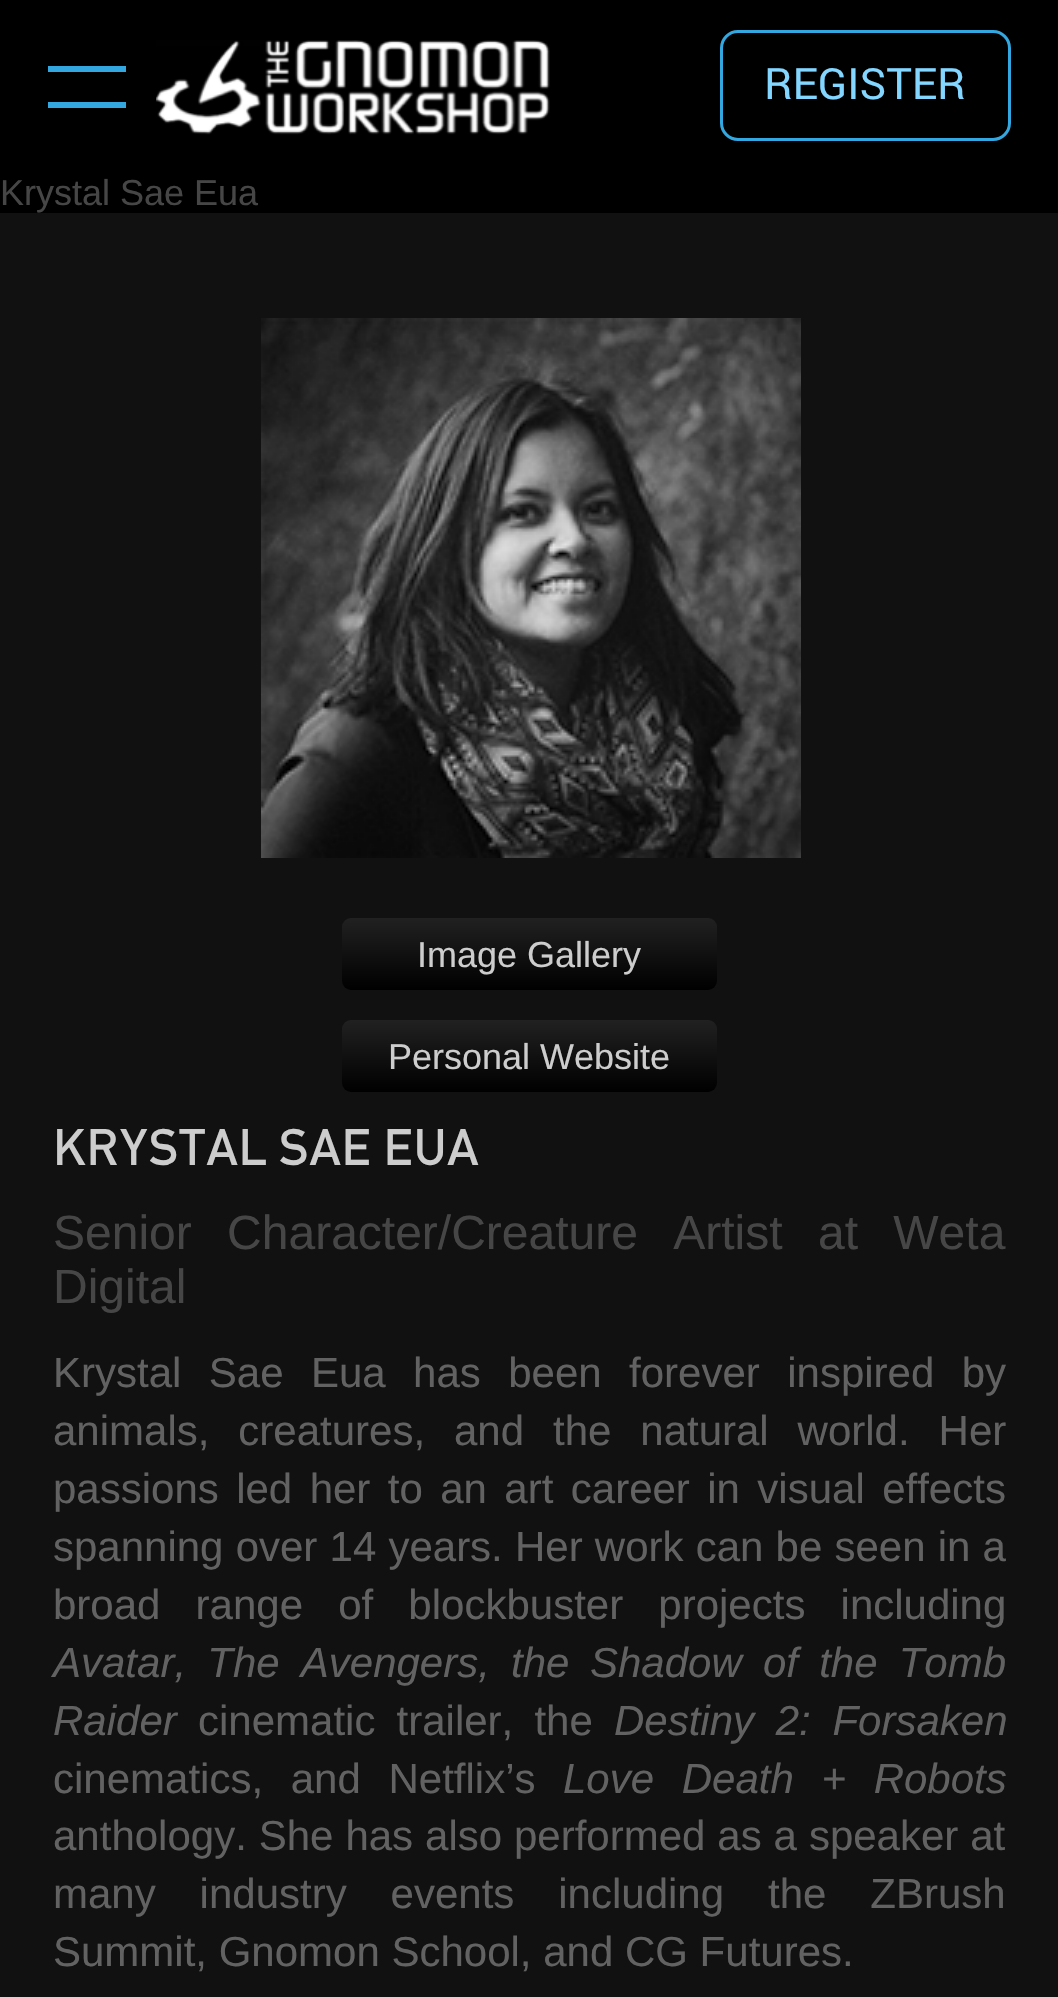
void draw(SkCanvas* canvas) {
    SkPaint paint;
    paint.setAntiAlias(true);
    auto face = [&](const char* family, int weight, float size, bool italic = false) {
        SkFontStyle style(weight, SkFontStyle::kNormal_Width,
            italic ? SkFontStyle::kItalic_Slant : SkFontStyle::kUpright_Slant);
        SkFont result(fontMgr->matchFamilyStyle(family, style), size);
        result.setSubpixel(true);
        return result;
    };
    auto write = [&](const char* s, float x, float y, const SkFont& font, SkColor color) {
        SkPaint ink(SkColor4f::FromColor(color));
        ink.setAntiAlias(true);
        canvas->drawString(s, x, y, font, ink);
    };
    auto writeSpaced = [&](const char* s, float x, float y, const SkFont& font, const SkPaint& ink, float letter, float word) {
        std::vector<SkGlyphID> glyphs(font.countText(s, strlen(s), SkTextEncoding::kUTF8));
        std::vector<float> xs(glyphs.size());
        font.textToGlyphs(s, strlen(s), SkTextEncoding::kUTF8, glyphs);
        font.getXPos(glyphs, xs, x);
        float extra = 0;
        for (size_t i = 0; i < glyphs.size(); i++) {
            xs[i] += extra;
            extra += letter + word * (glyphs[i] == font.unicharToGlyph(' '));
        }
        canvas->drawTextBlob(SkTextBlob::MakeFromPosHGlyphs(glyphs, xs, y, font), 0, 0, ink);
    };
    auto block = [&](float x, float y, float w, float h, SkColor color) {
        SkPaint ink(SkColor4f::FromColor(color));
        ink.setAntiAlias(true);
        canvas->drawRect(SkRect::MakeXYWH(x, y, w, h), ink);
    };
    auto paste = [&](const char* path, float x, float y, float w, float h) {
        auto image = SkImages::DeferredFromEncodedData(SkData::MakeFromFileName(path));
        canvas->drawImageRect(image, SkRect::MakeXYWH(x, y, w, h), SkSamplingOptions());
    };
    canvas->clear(SK_ColorBLACK);
    block(48, 66, 78, 6, SkColorSetRGB(51, 168, 224));
    block(48, 102, 78, 6, SkColorSetRGB(51, 168, 224));
    paste("pic1.png", 156, 40, 394, 95);
    paint.setStyle(SkPaint::kStroke_Style);
    paint.setStrokeWidth(3);
    paint.setColor(SkColorSetRGB(51, 168, 224));
    canvas->drawRoundRect(SkRect::MakeXYWH(721.5f, 31.5f, 288, 108), 16.5f, 16.5f, paint);
    auto kFont1 = face("Yantramanav", 400, 48);
    write("REGISTER", 764, 99, kFont1, SkColorSetRGB(130, 214, 255));
    auto kFont2 = face("Liberation Sans", 400, 36);
    write("Krystal Sae Eua", 0, 205, kFont2, SkColorSetRGB(70, 70, 70));
    block(0, 213, 1058, 1784, SkColorSetRGB(17, 17, 17));
    paste("pic2.png", 261, 318, 540, 540);
    paint.setStyle(SkPaint::kFill_Style);
    {
        const SkColor colors[] = {SkColorSetRGB(33, 33, 33), SK_ColorBLACK};
        const float stops[] = {0, 1};
        const SkPoint ends[] = {{530, 918}, {530, 990}};
        paint.setShader(SkGradientShader::MakeLinear(ends, colors, stops, 2, SkTileMode::kClamp));
        paint.setAlpha(255);
    }
    canvas->drawRoundRect(SkRect::MakeXYWH(342, 918, 375, 72), 9, 9, paint);
    write("Image Gallery", 417, 967, kFont2, SkColorSetRGB(205, 205, 205));
    {
        const SkColor colors[] = {SkColorSetRGB(33, 33, 33), SK_ColorBLACK};
        const float stops[] = {0, 1};
        const SkPoint ends[] = {{530, 1020}, {530, 1092}};
        paint.setShader(SkGradientShader::MakeLinear(ends, colors, stops, 2, SkTileMode::kClamp));
        paint.setAlpha(255);
    }
    canvas->drawRoundRect(SkRect::MakeXYWH(342, 1020, 375, 72), 9, 9, paint);
    write("Personal Website", 388, 1069, kFont2, SkColorSetRGB(205, 205, 205));
    auto kFont3 = face("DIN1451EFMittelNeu", 400, 54);
    paint.setShader(nullptr);
    paint.setColor(SkColorSetRGB(205, 205, 205));
    writeSpaced("KRYSTAL SAE EUA", 53, 1165, kFont3, paint, 0, -14);
    auto kFont4 = face("Liberation Sans", 400, 48);
    paint.setColor(SkColorSetRGB(70, 70, 70));
    writeSpaced("Senior Character/Creature Artist at Weta", 53, 1249, kFont4, paint, 0, 22);
    write("Digital", 53, 1303, kFont4, SkColorSetRGB(70, 70, 70));
    auto kFont5 = face("Liberation Sans", 400, 42);
    paint.setColor(SkColorSetRGB(98, 98, 98));
    writeSpaced("Krystal Sae Eua has been forever inspired by", 53, 1387, kFont5, paint, 0, 15.75f);
    writeSpaced("animals, creatures, and the natural world. Her", 53, 1445, kFont5, paint, 0, 17.25f);
    writeSpaced("passions led her to an art career in visual effects", 53, 1503, kFont5, paint, 0, 5.75f);
    writeSpaced("spanning over 14 years. Her work can be seen in a", 53, 1561, kFont5, paint, 0, 0.5f);
    writeSpaced("broad range of blockbuster projects including", 53, 1619, kFont5, paint, 0, 23.5f);
    auto kFont6 = face("Liberation Sans", 400, 42, true);
    writeSpaced("Avatar, The Avengers, the", 53, 1677, kFont6, paint, 0, 9.5f);
    writeSpaced("Shadow of the Tomb", 590, 1677, kFont6, paint, 0, 9.5f);
    write("Raider", 53, 1735, kFont6, SkColorSetRGB(98, 98, 98));
    writeSpaced("cinematic trailer, the", 198, 1735, kFont5, paint, 0, 9.5f);
    writeSpaced("Destiny 2: Forsaken", 614, 1735, kFont6, paint, 0, 10);
    writeSpaced("cinematics, and Netflix’s", 53, 1793, kFont5, paint, 0, 16);
    writeSpaced("Love Death + Robots", 563, 1793, kFont6, paint, 0, 16);
    writeSpaced("anthology. She has also performed as a speaker at", 53, 1850, kFont5, paint, 0, 0.25f);
    writeSpaced("many industry events including the ZBrush", 53, 1908, kFont5, paint, 0, 32.25f);
    write("Summit, Gnomon School, and CG Futures.", 53, 1966, kFont5, SkColorSetRGB(98, 98, 98));
}
